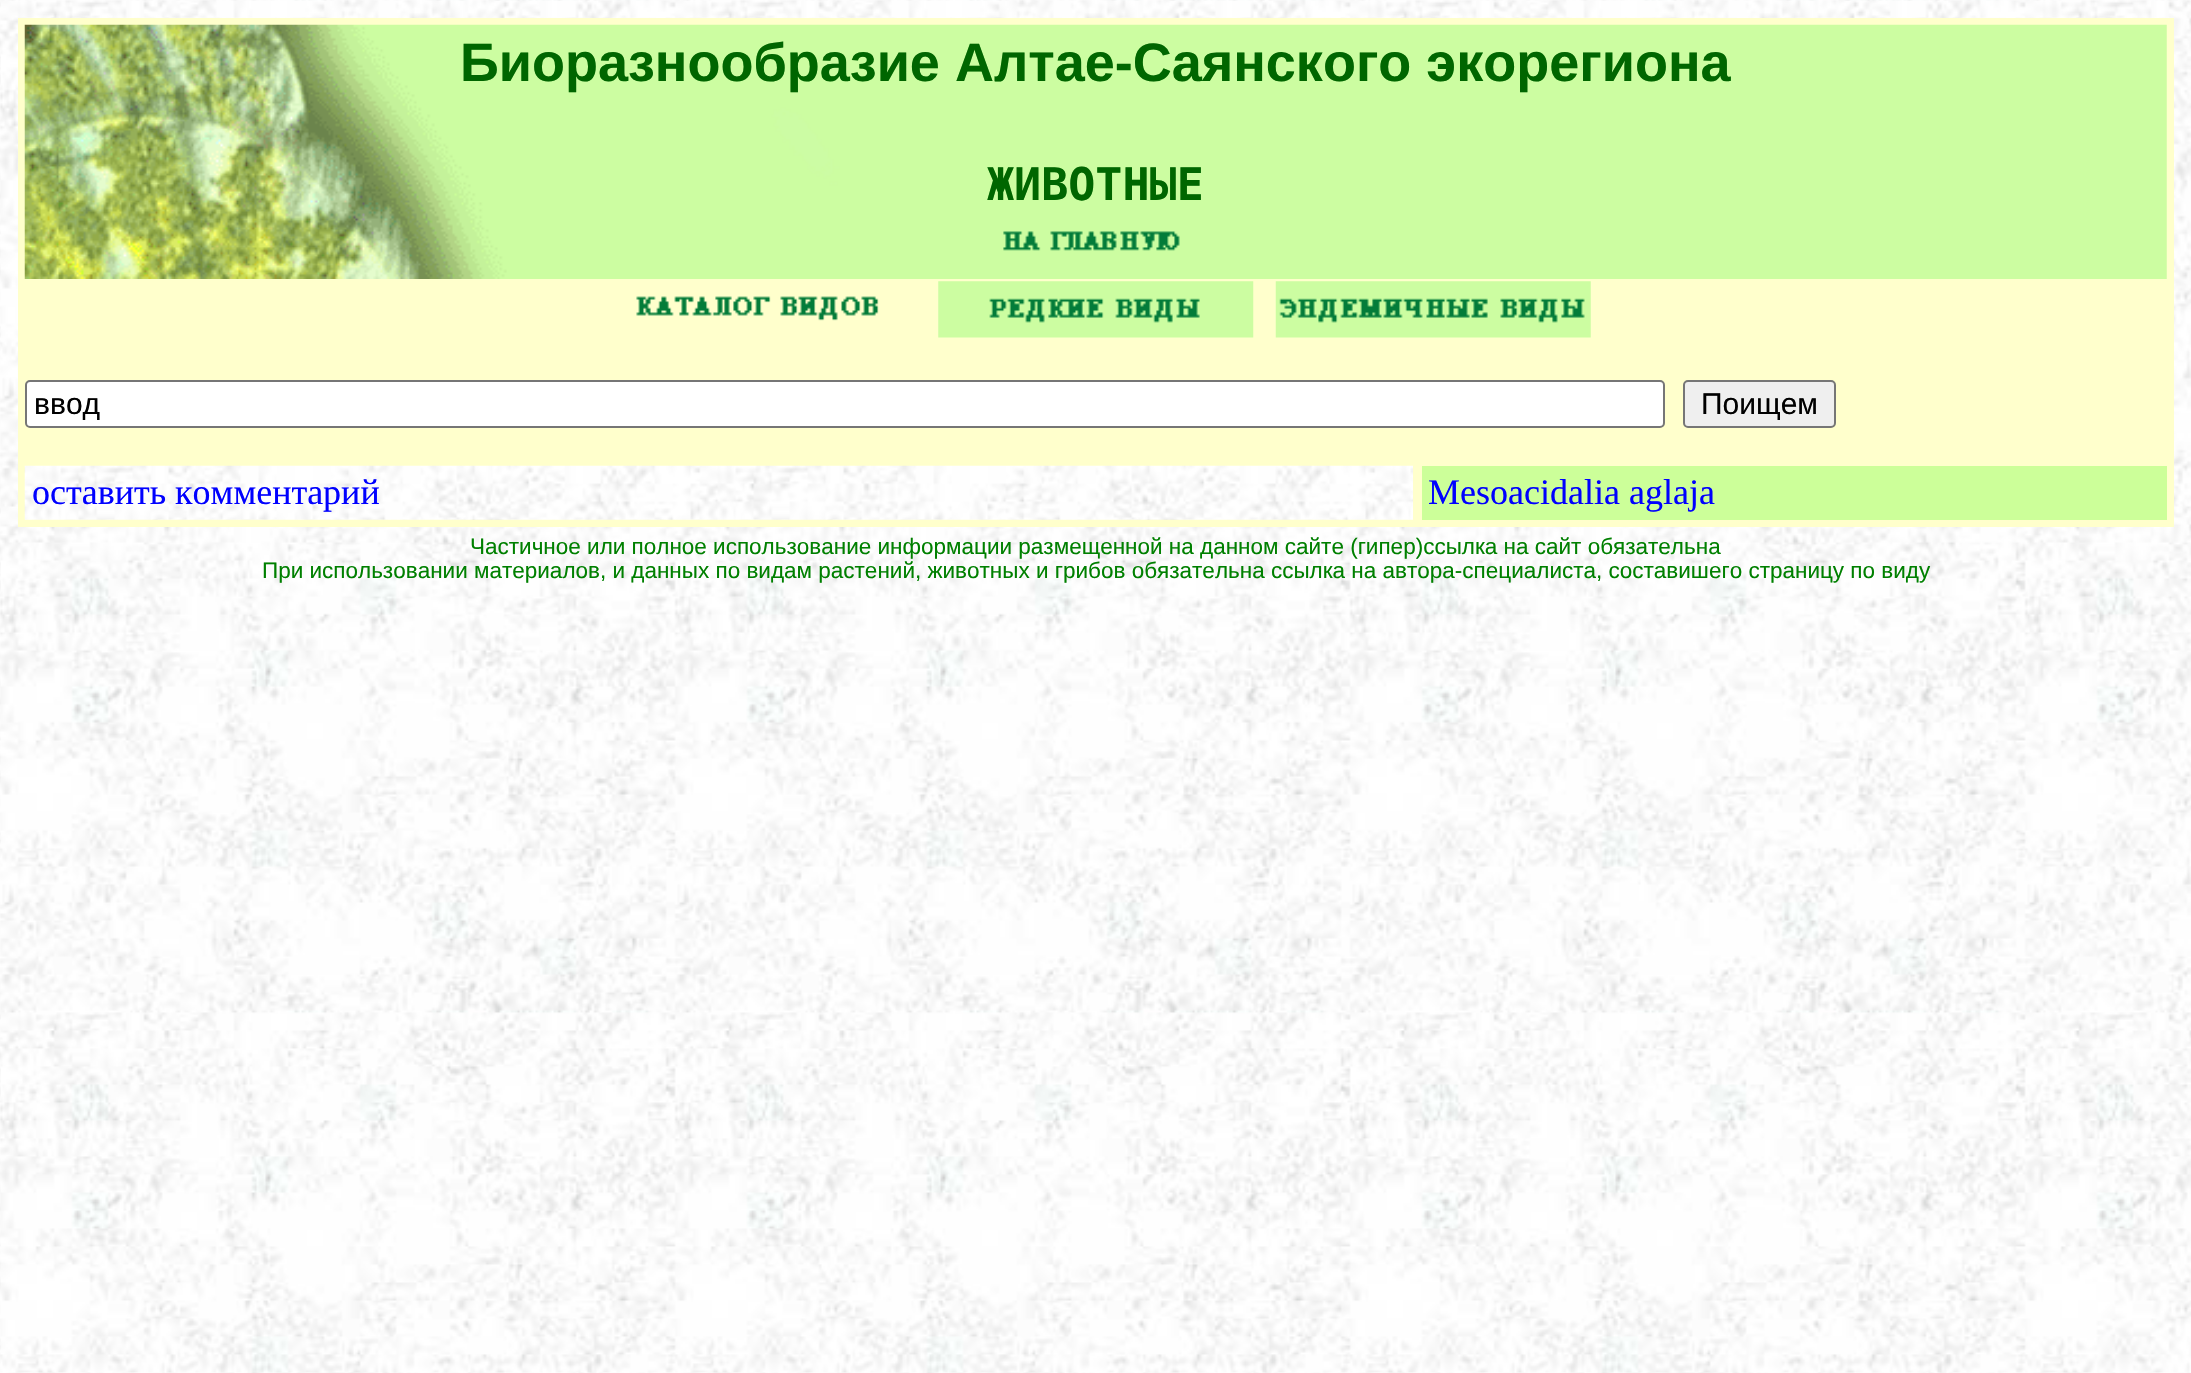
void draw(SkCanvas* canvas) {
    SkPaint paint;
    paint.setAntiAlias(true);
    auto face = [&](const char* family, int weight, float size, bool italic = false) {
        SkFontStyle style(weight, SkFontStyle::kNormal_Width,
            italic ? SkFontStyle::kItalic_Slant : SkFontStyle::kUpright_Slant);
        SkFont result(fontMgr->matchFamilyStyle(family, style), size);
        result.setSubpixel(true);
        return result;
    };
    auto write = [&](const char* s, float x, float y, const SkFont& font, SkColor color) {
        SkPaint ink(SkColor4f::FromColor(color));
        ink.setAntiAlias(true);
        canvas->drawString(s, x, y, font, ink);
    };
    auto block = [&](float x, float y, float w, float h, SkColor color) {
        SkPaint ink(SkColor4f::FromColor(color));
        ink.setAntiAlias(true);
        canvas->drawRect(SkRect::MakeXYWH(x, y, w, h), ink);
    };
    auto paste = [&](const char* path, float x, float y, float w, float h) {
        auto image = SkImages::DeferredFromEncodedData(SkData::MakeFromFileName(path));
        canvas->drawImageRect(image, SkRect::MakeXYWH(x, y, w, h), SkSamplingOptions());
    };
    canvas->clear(SK_ColorWHITE);
    paste("pic1.png", 0, 0, 2191, 1373);
    block(18, 18, 2156, 509, SkColorSetRGB(255, 255, 204));
    paste("pic2.png", 24, 24, 2143, 255);
    auto kFont1 = face("Liberation Sans", 700, 54);
    write("Биоразнообразие Алтае-Саянского экорегиона", 460, 81, kFont1, SkColorSetRGB(0, 102, 0));
    auto kFont2 = face("DejaVu Sans Mono", 700, 45);
    write("ЖИВОТНЫЕ", 987, 200, kFont2, SkColorSetRGB(0, 102, 0));
    paste("pic3.png", 1003, 231, 177, 20);
    paste("pic4.png", 636, 296, 243, 25);
    paste("pic5.png", 938, 281, 316, 57);
    paste("pic6.png", 1275, 281, 316, 57);
    paint.setColor(SK_ColorWHITE);
    canvas->drawRoundRect(SkRect::MakeXYWH(26, 381, 1638, 46), 4, 4, paint);
    paint.setStyle(SkPaint::kStroke_Style);
    paint.setStrokeWidth(2);
    paint.setColor(SkColorSetRGB(118, 118, 118));
    canvas->drawRoundRect(SkRect::MakeXYWH(26, 381, 1638, 46), 4, 4, paint);
    auto kFont3 = face("Liberation Sans", 400, 30);
    write("ввод", 34, 414, kFont3, SK_ColorBLACK);
    paint.setStyle(SkPaint::kFill_Style);
    paint.setColor(SkColorSetRGB(239, 239, 239));
    canvas->drawRoundRect(SkRect::MakeXYWH(1684, 381, 151, 46), 4, 4, paint);
    paint.setStyle(SkPaint::kStroke_Style);
    paint.setColor(SkColorSetRGB(118, 118, 118));
    canvas->drawRoundRect(SkRect::MakeXYWH(1684, 381, 151, 46), 4, 4, paint);
    write("Поищем", 1701, 414, kFont3, SK_ColorBLACK);
    paste("pic7.png", 24, 465, 1389, 55);
    auto kFont4 = face("Liberation Serif", 400, 36);
    write("оставить комментарий", 32, 504, kFont4, SkColorSetRGB(0, 0, 255));
    block(1422, 466, 745, 54, SkColorSetRGB(204, 255, 153));
    write("Mesoacidalia aglaja", 1428, 504, kFont4, SkColorSetRGB(0, 0, 255));
    auto kFont5 = face("Liberation Sans", 400, 22.5f);
    write("Частичное или полное использование информации размещенной на данном сайте (гипер)ссылка на сайт обязательна", 470, 554, kFont5, SkColorSetRGB(0, 128, 0));
    write("При использовании материалов, и данных по видам растений, животных и грибов обязательна ссылка на автора-специалиста, составишего страницу по виду", 262, 578, kFont5, SkColorSetRGB(0, 128, 0));
}
